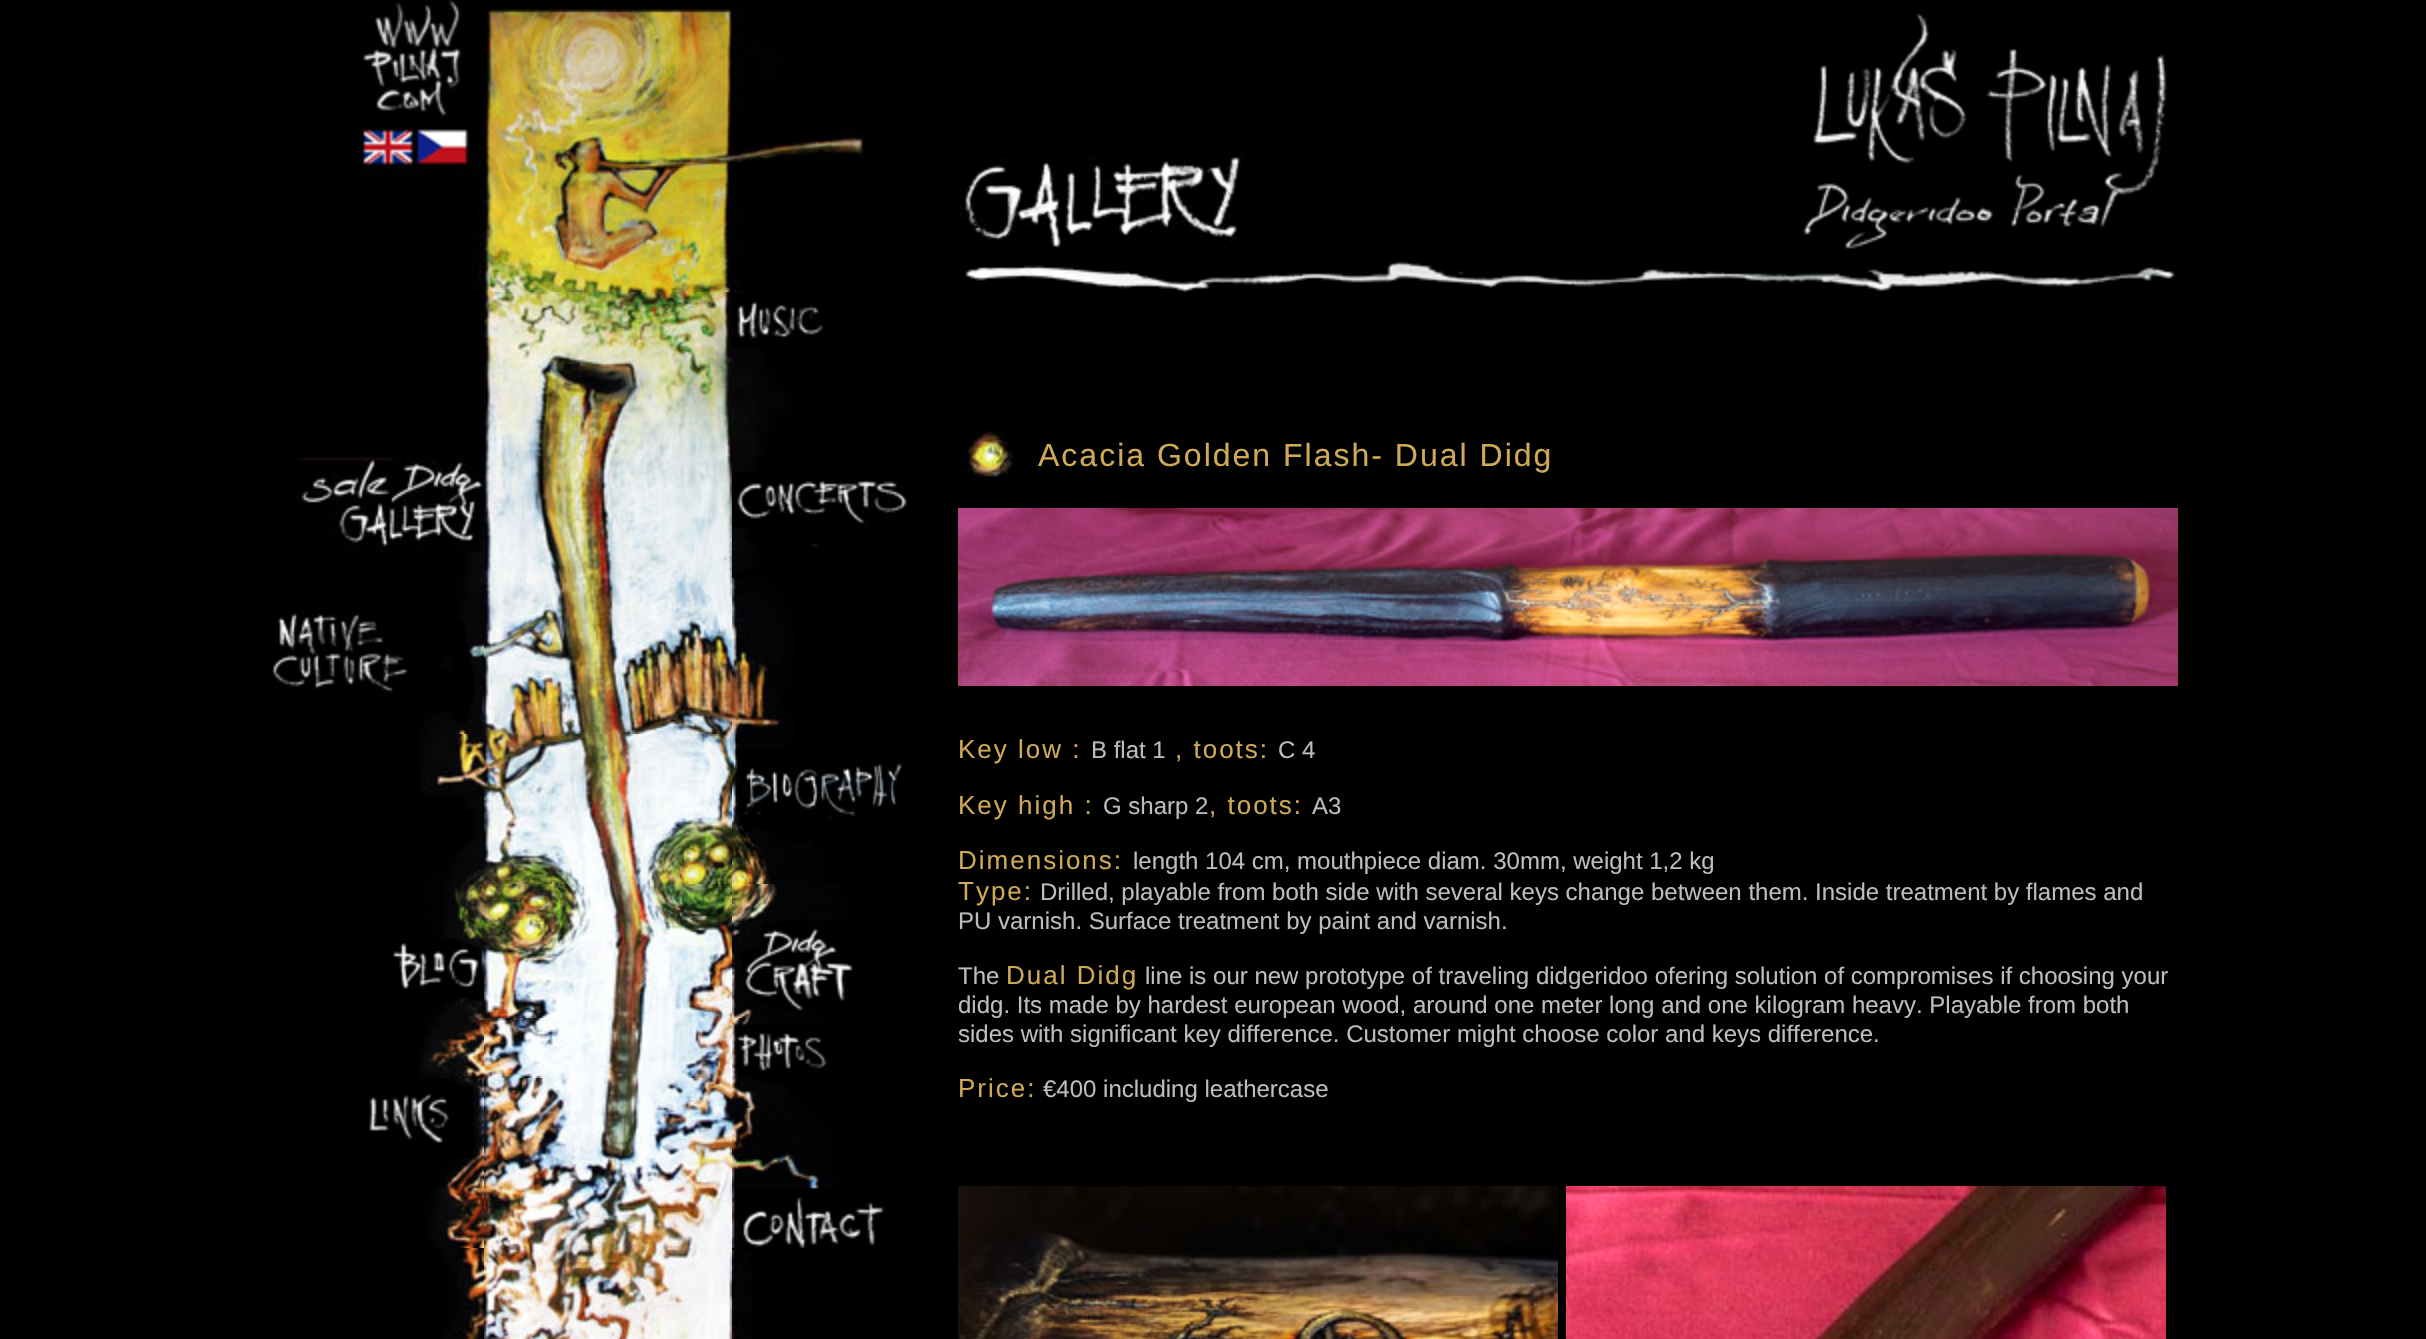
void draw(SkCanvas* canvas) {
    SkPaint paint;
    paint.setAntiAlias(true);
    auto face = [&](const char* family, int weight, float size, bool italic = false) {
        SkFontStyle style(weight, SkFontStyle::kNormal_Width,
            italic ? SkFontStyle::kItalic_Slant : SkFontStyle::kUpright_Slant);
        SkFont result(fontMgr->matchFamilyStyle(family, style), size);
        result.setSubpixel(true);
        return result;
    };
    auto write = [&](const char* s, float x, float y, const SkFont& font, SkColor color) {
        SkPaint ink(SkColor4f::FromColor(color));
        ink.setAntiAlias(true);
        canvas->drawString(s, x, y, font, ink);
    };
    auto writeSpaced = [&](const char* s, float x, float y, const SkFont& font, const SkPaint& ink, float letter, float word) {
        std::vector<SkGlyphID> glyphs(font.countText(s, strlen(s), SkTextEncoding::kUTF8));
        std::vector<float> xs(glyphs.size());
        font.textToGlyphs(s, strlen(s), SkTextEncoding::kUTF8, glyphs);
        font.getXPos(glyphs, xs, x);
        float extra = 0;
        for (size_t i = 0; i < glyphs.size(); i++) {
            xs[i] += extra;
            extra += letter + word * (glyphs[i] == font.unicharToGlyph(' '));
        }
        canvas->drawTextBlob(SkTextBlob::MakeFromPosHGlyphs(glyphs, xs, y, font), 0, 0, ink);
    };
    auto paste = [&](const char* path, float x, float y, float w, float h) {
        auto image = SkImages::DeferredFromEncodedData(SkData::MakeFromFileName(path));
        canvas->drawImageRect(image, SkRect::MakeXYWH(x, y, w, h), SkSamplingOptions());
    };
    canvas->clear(SK_ColorBLACK);
    paste("pic1.png", 360, 0, 506, 292);
    paste("pic2.png", 484, 292, 248, 164);
    paste("pic3.png", 732, 292, 92, 164);
    paste("pic4.png", 296, 456, 188, 122);
    paste("pic5.png", 484, 456, 248, 122);
    paste("pic6.png", 732, 456, 175, 115);
    paste("pic7.png", 271, 578, 213, 156);
    paste("pic8.png", 484, 578, 248, 156);
    paste("pic9.png", 732, 578, 63, 156);
    paste("pic10.png", 419, 734, 65, 150);
    paste("pic11.png", 484, 734, 248, 150);
    paste("pic12.png", 732, 734, 170, 150);
    paste("pic13.png", 393, 884, 91, 134);
    paste("pic14.png", 484, 884, 248, 134);
    paste("pic15.png", 732, 884, 121, 134);
    paste("pic16.png", 419, 1018, 65, 60);
    paste("pic17.png", 484, 1018, 248, 60);
    paste("pic18.png", 732, 1018, 95, 60);
    paste("pic19.png", 369, 1078, 115, 170);
    paste("pic20.png", 484, 1078, 248, 170);
    paste("pic21.png", 732, 1078, 153, 170);
    paste("pic22.png", 440, 1248, 44, 91);
    paste("pic23.png", 484, 1248, 248, 91);
    paste("pic24.png", 732, 1250, 21, 89);
    paste("pic25.png", 960, 154, 284, 96);
    paste("pic26.png", 1803, 13, 364, 236);
    paste("pic27.png", 965, 261, 1210, 31);
    paste("pic28.png", 958, 429, 56, 55);
    auto kFont1 = face("Liberation Sans", 400, 32);
    paint.setColor(SkColorSetRGB(206, 170, 86));
    writeSpaced("Acacia Golden Flash- Dual Didg", 1038, 466, kFont1, paint, 2, 0);
    paste("pic29.png", 958, 508, 1220, 178);
    auto kFont2 = face("Liberation Sans", 400, 26);
    writeSpaced("Key low :", 958, 758, kFont2, paint, 2, 0);
    auto kFont3 = face("Liberation Sans", 400, 24);
    write("B flat 1", 1091, 758, kFont3, SkColorSetRGB(189, 189, 189));
    writeSpaced(", toots:", 1175, 758, kFont2, paint, 2, 0);
    write("C 4", 1278, 758, kFont3, SkColorSetRGB(189, 189, 189));
    writeSpaced("Key high :", 958, 814, kFont2, paint, 2, 0);
    write("G sharp 2", 1103, 814, kFont3, SkColorSetRGB(189, 189, 189));
    writeSpaced(", toots:", 1209, 814, kFont2, paint, 2, 0);
    write("A3", 1312, 814, kFont3, SkColorSetRGB(189, 189, 189));
    writeSpaced("Dimensions:", 958, 869, kFont2, paint, 2, 0);
    write("length 104 cm, mouthpiece diam. 30mm, weight 1,2 kg", 1133, 869, kFont3, SkColorSetRGB(189, 189, 189));
    writeSpaced("Type:", 958, 900, kFont2, paint, 2, 0);
    write("Drilled, playable from both side with several keys change between them. Inside treatment by flames and", 1040, 900, kFont3, SkColorSetRGB(189, 189, 189));
    write("PU varnish. Surface treatment by paint and varnish.", 958, 929, kFont3, SkColorSetRGB(189, 189, 189));
    write("The", 958, 984, kFont3, SkColorSetRGB(189, 189, 189));
    writeSpaced("Dual Didg", 1006, 984, kFont2, paint, 2, 0);
    write("line is our new prototype of traveling didgeridoo ofering solution of compromises if choosing your", 1145, 984, kFont3, SkColorSetRGB(189, 189, 189));
    write("didg. Its made by hardest european wood, around one meter long and one kilogram heavy. Playable from both", 958, 1013, kFont3, SkColorSetRGB(189, 189, 189));
    write("sides with significant key difference. Customer might choose color and keys difference.", 958, 1042, kFont3, SkColorSetRGB(189, 189, 189));
    writeSpaced("Price:", 958, 1097, kFont2, paint, 2, 0);
    write("€400 including leathercase", 1043, 1097, kFont3, SkColorSetRGB(189, 189, 189));
    paste("pic30.png", 958, 1186, 600, 153);
    paste("pic31.png", 1566, 1186, 600, 153);
}
